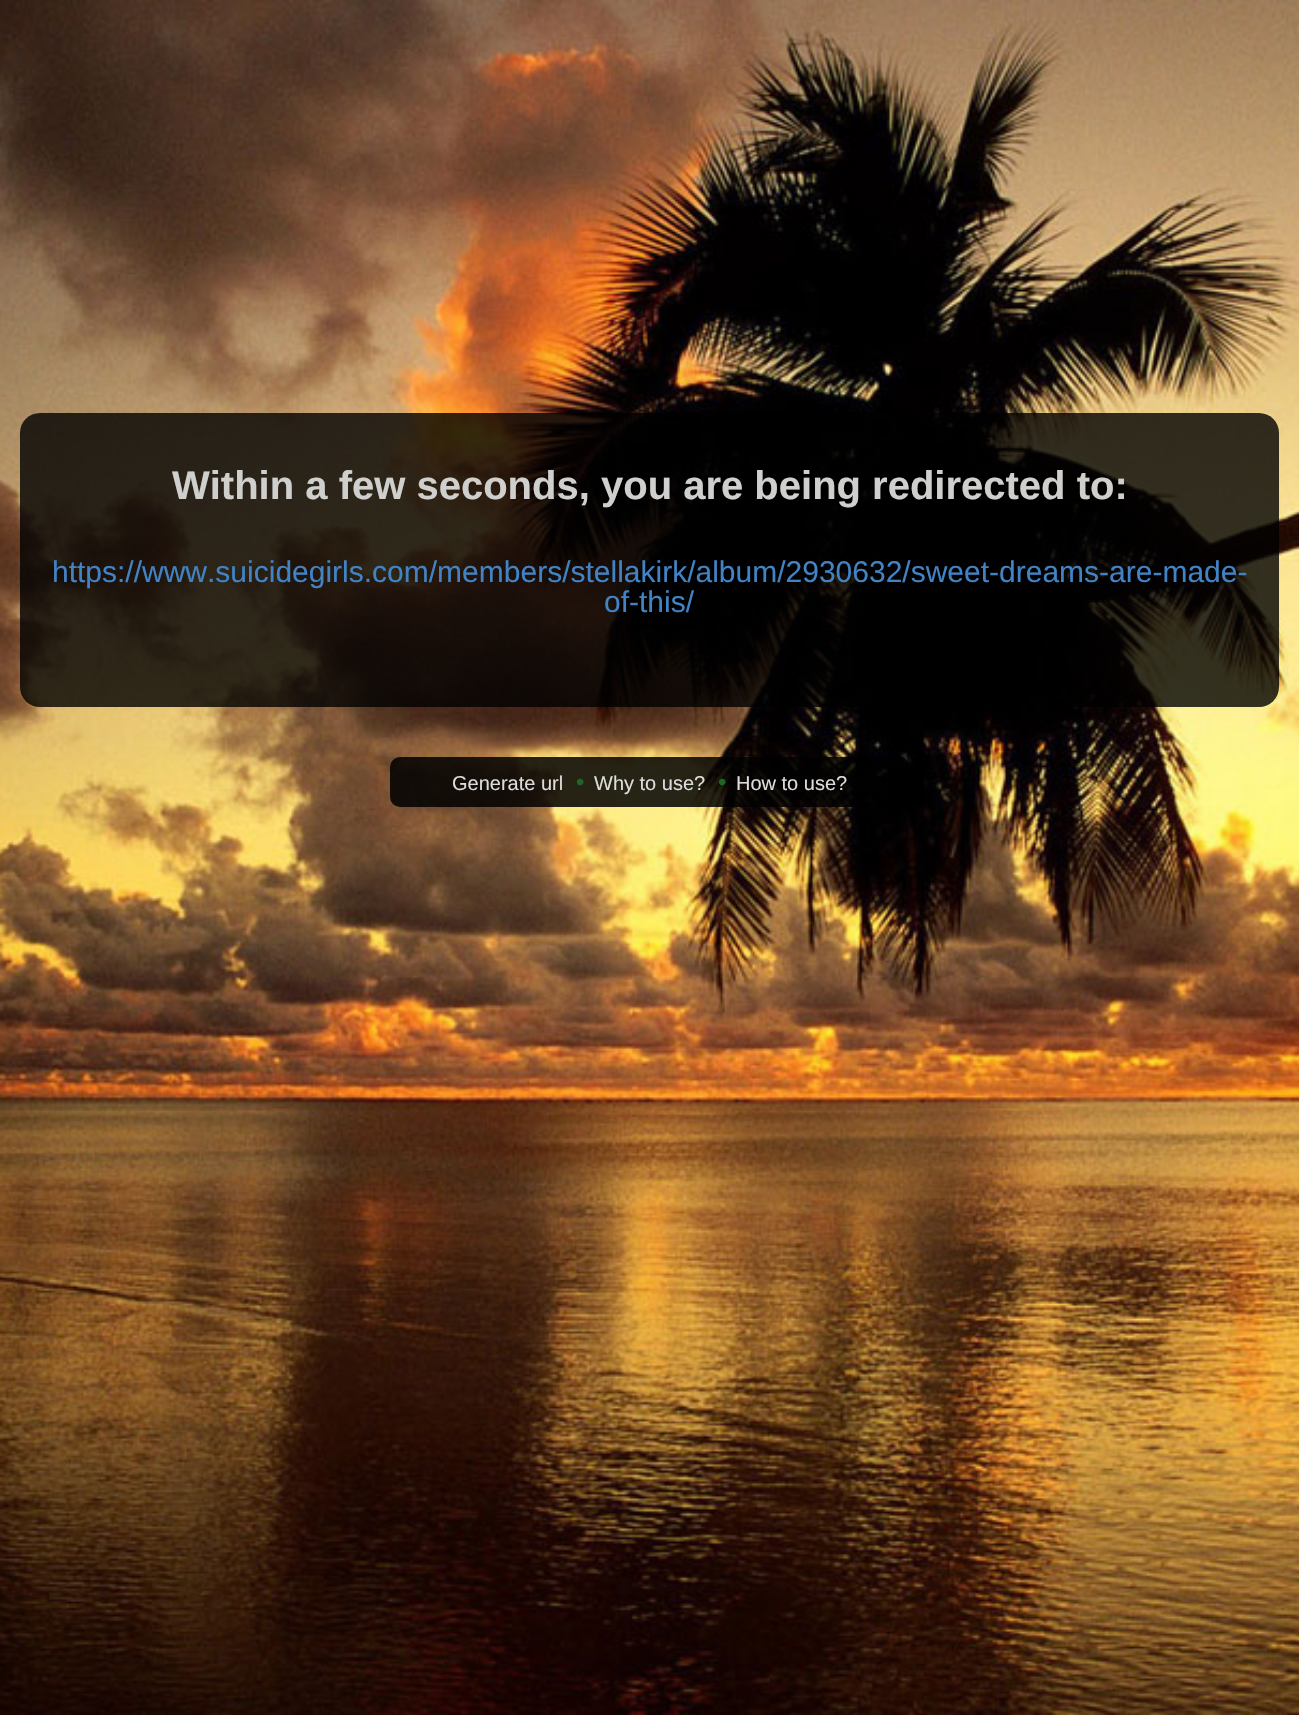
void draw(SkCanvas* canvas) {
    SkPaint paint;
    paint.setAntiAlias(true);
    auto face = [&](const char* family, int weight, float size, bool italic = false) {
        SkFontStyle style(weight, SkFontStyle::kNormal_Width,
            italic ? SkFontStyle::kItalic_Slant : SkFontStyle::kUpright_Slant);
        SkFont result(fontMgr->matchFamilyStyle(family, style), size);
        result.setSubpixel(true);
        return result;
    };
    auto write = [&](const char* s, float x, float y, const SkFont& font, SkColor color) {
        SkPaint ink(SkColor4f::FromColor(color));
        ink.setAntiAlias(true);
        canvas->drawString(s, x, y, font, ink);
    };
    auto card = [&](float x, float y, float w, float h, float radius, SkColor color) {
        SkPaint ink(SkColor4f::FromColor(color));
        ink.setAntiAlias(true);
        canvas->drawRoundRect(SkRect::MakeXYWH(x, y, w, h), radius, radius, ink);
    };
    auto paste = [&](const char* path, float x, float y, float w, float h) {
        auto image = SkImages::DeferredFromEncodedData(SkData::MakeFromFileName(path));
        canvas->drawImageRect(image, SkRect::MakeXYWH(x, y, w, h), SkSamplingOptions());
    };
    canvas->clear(SK_ColorWHITE);
    paste("pic1.png", 0, 0, 1299, 1715);
    card(20, 413, 1259, 294, 20, SkColorSetARGB(204, 0, 0, 0));
    auto kFont1 = face("Liberation Sans", 700, 40);
    write("Within a few seconds, you are being redirected to:", 172, 499, kFont1, SkColorSetRGB(207, 207, 206));
    auto kFont2 = face("Liberation Sans", 400, 30);
    write("https://www.suicidegirls.com/members/stellakirk/album/2930632/sweet-dreams-are-made-", 52, 582, kFont2, SkColorSetRGB(65, 131, 196));
    write("of-this/", 604, 612, kFont2, SkColorSetRGB(65, 131, 196));
    card(390, 757, 520, 50, 10, SkColorSetARGB(217, 0, 0, 0));
    auto kFont3 = face("Liberation Sans", 400, 20);
    write("Generate url", 452, 790, kFont3, SkColorSetRGB(221, 221, 221));
    auto kFont4 = face("Liberation Sans", 400, 24);
    write("•", 576, 790, kFont4, SkColorSetRGB(27, 103, 40));
    write("Why to use?", 594, 790, kFont3, SkColorSetRGB(221, 221, 221));
    write("•", 718, 790, kFont4, SkColorSetRGB(27, 103, 40));
    write("How to use?", 736, 790, kFont3, SkColorSetRGB(221, 221, 221));
}
